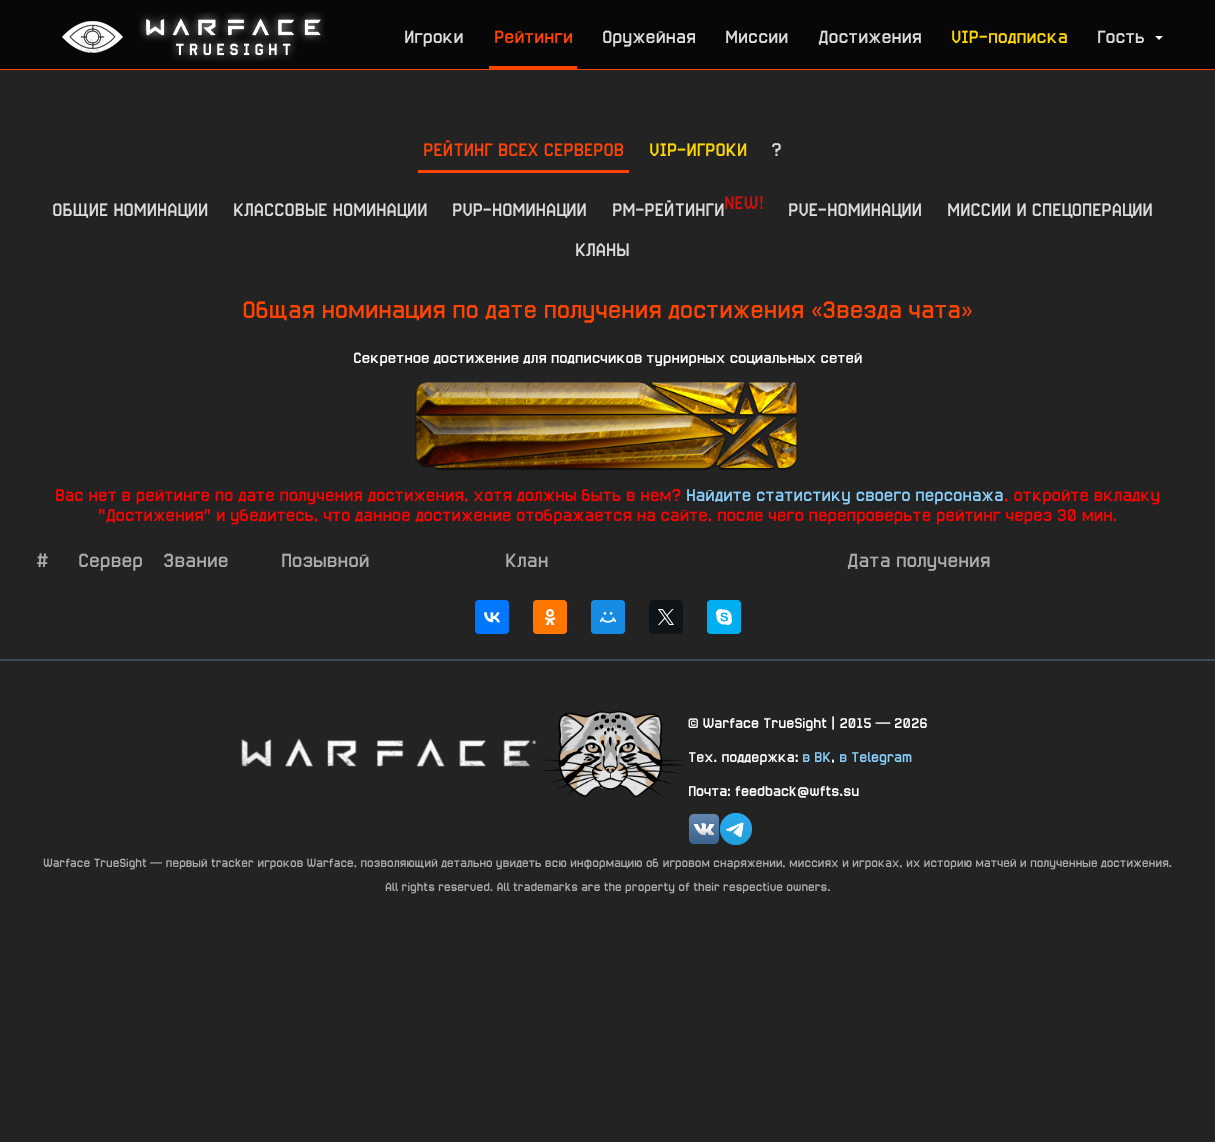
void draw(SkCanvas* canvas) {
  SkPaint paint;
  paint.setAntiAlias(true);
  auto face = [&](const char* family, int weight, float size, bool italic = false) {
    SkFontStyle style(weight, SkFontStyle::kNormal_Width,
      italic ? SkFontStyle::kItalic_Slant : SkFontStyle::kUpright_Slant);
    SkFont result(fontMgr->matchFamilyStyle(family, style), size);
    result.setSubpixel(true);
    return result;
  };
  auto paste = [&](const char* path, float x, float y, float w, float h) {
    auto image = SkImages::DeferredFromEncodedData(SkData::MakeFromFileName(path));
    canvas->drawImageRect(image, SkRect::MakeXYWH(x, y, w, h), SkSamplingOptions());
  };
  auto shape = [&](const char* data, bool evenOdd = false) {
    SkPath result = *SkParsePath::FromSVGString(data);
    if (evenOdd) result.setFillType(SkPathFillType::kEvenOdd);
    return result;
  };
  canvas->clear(0xff242323);
  paint.setColor(0xff070707);
  canvas->drawRect(SkRect::MakeXYWH(0, 0, 1215, 69), paint);
  paint.setColor(0xffff4400);
  canvas->drawRect(SkRect::MakeXYWH(0, 69, 1215, 1), paint);
  paste("img/1.png", 62, 12, 263, 50);
  canvas->drawRect(SkRect::MakeXYWH(489, 66, 88, 3), paint);
  paint.setColor(0xffffffff);
  canvas->drawPath(shape("M1155 36H1163L1159 40Z"), paint);
  paint.setColor(0xffff4400);
  canvas->drawRect(SkRect::MakeXYWH(418, 170, 211, 3), paint);
  paste("img/2.png", 415, 382, 383, 89);
  paint.setColor(0xff0077ff);
  canvas->drawRoundRect(SkRect::MakeXYWH(475, 600, 34, 34), 4, 4, paint);
  paste("img/3.png", 484, 612, 16, 11);
  paint.setColor(0xffff7700);
  canvas->drawRoundRect(SkRect::MakeXYWH(533, 600, 34, 34), 4, 4, paint);
  paste("img/4.png", 544, 609, 12, 16);
  paint.setColor(0xff168de2);
  canvas->drawRoundRect(SkRect::MakeXYWH(591, 600, 34, 34), 4, 4, paint);
  paste("img/5.png", 600, 612, 16, 11);
  paint.setColor(0xff0f1419);
  canvas->drawRoundRect(SkRect::MakeXYWH(649, 600, 34, 34), 4, 4, paint);
  paste("img/6.png", 658, 609, 16, 16);
  paint.setColor(0xff00aff0);
  canvas->drawRoundRect(SkRect::MakeXYWH(707, 600, 34, 34), 4, 4, paint);
  paste("img/7.png", 716, 609, 16, 16);
  paint.setColor(0xff404c57);
  canvas->drawRect(SkRect::MakeXYWH(0, 659, 1215, 2), paint);
  paste("img/8.png", 241, 738, 296, 29);
  paste("img/9.png", 542, 711, 143, 86);
  paste("img/10.png", 688, 813, 32, 31);
  paste("img/11.png", 720, 813, 32, 32);
  auto f0 = face("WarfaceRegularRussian", 400, 18);
  paint.setColor(0xffdbdcde);
  canvas->drawString("Игроки", 404, 43, f0, paint);
  paint.setColor(0xffff4400);
  canvas->drawString("Рейтинги", 494, 43, f0, paint);
  paint.setColor(0xffdbdcde);
  {
    const struct { const char* s; float x, y; } items[] = {
      {"Оружейная", 602, 43},
      {"Миссии", 725, 43},
      {"Достижения", 818, 43},
    };
    for (auto [s, x, y] : items) {
      canvas->drawString(s, x, y, f0, paint);
    }
  }
  paint.setColor(0xffffd700);
  canvas->drawString("VIP-подписка", 951, 43, f0, paint);
  paint.setColor(0xffdbdcde);
  canvas->drawString("Гость", 1097, 43, f0, paint);
  auto f1 = face("WarfaceRegularRussian", 400, 18.25f);
  paint.setColor(0xffff4400);
  canvas->drawString("РЕЙТИНГ ВСЕХ СЕРВЕРОВ", 423, 156, f1, paint);
  paint.setColor(0xffffd700);
  canvas->drawString("VIP-ИГРОКИ", 649, 156, f1, paint);
  paint.setColor(0xffdbdcde);
  {
    const struct { const char* s; float x, y; } items[] = {
      {"?", 771, 156},
      {"ОБЩИЕ НОМИНАЦИИ", 52, 216},
      {"КЛАССОВЫЕ НОМИНАЦИИ", 233, 216},
      {"PVP-НОМИНАЦИИ", 452, 216},
      {"РМ-РЕЙТИНГИ", 612, 216},
    };
    for (auto [s, x, y] : items) {
      canvas->drawString(s, x, y, f1, paint);
    }
  }
  paint.setColor(0xffd11010);
  canvas->drawString("NEW!", 724, 209, f1, paint);
  paint.setColor(0xffdbdcde);
  {
    const struct { const char* s; float x, y; } items[] = {
      {"PVE-НОМИНАЦИИ", 788, 216},
      {"МИССИИ И СПЕЦОПЕРАЦИИ", 947, 216},
      {"КЛАНЫ", 575, 256},
    };
    for (auto [s, x, y] : items) {
      canvas->drawString(s, x, y, f1, paint);
    }
  }
  auto f2 = face("WarfaceRegularRussian", 400, 24);
  paint.setColor(0xffff4400);
  canvas->drawString("Общая номинация по дате получения достижения", 242, 318, f2, paint);
  auto f3 = face("Oxygen", 400, 24);
  canvas->drawString("«", 811, 318, f3, paint);
  canvas->drawString("Звезда чата", 822, 318, f2, paint);
  canvas->drawString("»", 961, 318, f3, paint);
  auto f4 = face("WarfaceRegularRussian", 400, 15.1f);
  paint.setColor(0xffffffff);
  canvas->drawString("Секретное достижение для подписчиков турнирных социальных сетей", 353, 363, f4, paint);
  auto f5 = face("WarfaceRegularRussian", 400, 17);
  paint.setColor(0xffff0000);
  canvas->drawString("Вас нет в рейтинге по дате получения достижения, хотя должны быть в нем?", 55, 501, f5, paint);
  paint.setColor(0xff87cefa);
  canvas->drawString("Найдите статистику своего персонажа", 686, 501, f5, paint);
  paint.setColor(0xffff0000);
  canvas->drawString(", откройте вкладку", 1004, 501, f5, paint);
  canvas->drawString("\"Достижения\" и убедитесь, что данное достижение отображается на сайте, после чего перепроверьте рейтинг через 30 мин.", 98, 521, f5, paint);
  auto f6 = face("WarfaceRegularRussian", 400, 19.25f);
  paint.setColor(0xffababab);
  {
    const struct { const char* s; float x, y; } items[] = {
      {"#", 36, 567},
      {"Сервер", 78, 567},
      {"Звание", 163, 567},
      {"Позывной", 281, 567},
      {"Клан", 505, 567},
      {"Дата получения", 847, 567},
    };
    for (auto [s, x, y] : items) {
      canvas->drawString(s, x, y, f6, paint);
    }
  }
  auto f7 = face("WarfaceRegularRussian", 400, 14.4f);
  paint.setColor(0xffffffff);
  canvas->drawString("© Warface TrueSight | 2015 — 2026", 688, 728, f7, paint);
  canvas->drawString("Тех. поддержка:", 688, 762, f7, paint);
  paint.setColor(0xff87cefa);
  canvas->drawString("в ВК", 802, 762, f7, paint);
  paint.setColor(0xffffffff);
  canvas->drawString(",", 831, 762, f7, paint);
  paint.setColor(0xff87cefa);
  canvas->drawString("в Telegram", 839, 762, f7, paint);
  paint.setColor(0xffffffff);
  canvas->drawString("Почта: feedback@wfts.su", 688, 796, f7, paint);
  auto f8 = face("WarfaceRegularRussian", 400, 12);
  paint.setColor(0xffababab);
  canvas->drawString("Warface TrueSight — первый tracker игроков Warface, позволяющий детально увидеть всю информацию об игровом снаряжении, миссиях и игроках, их историю матчей и полученные достижения.", 43, 867, f8, paint);
  canvas->drawString("All rights reserved. All trademarks are the property of their respective owners.", 385, 891, f8, paint);
}
